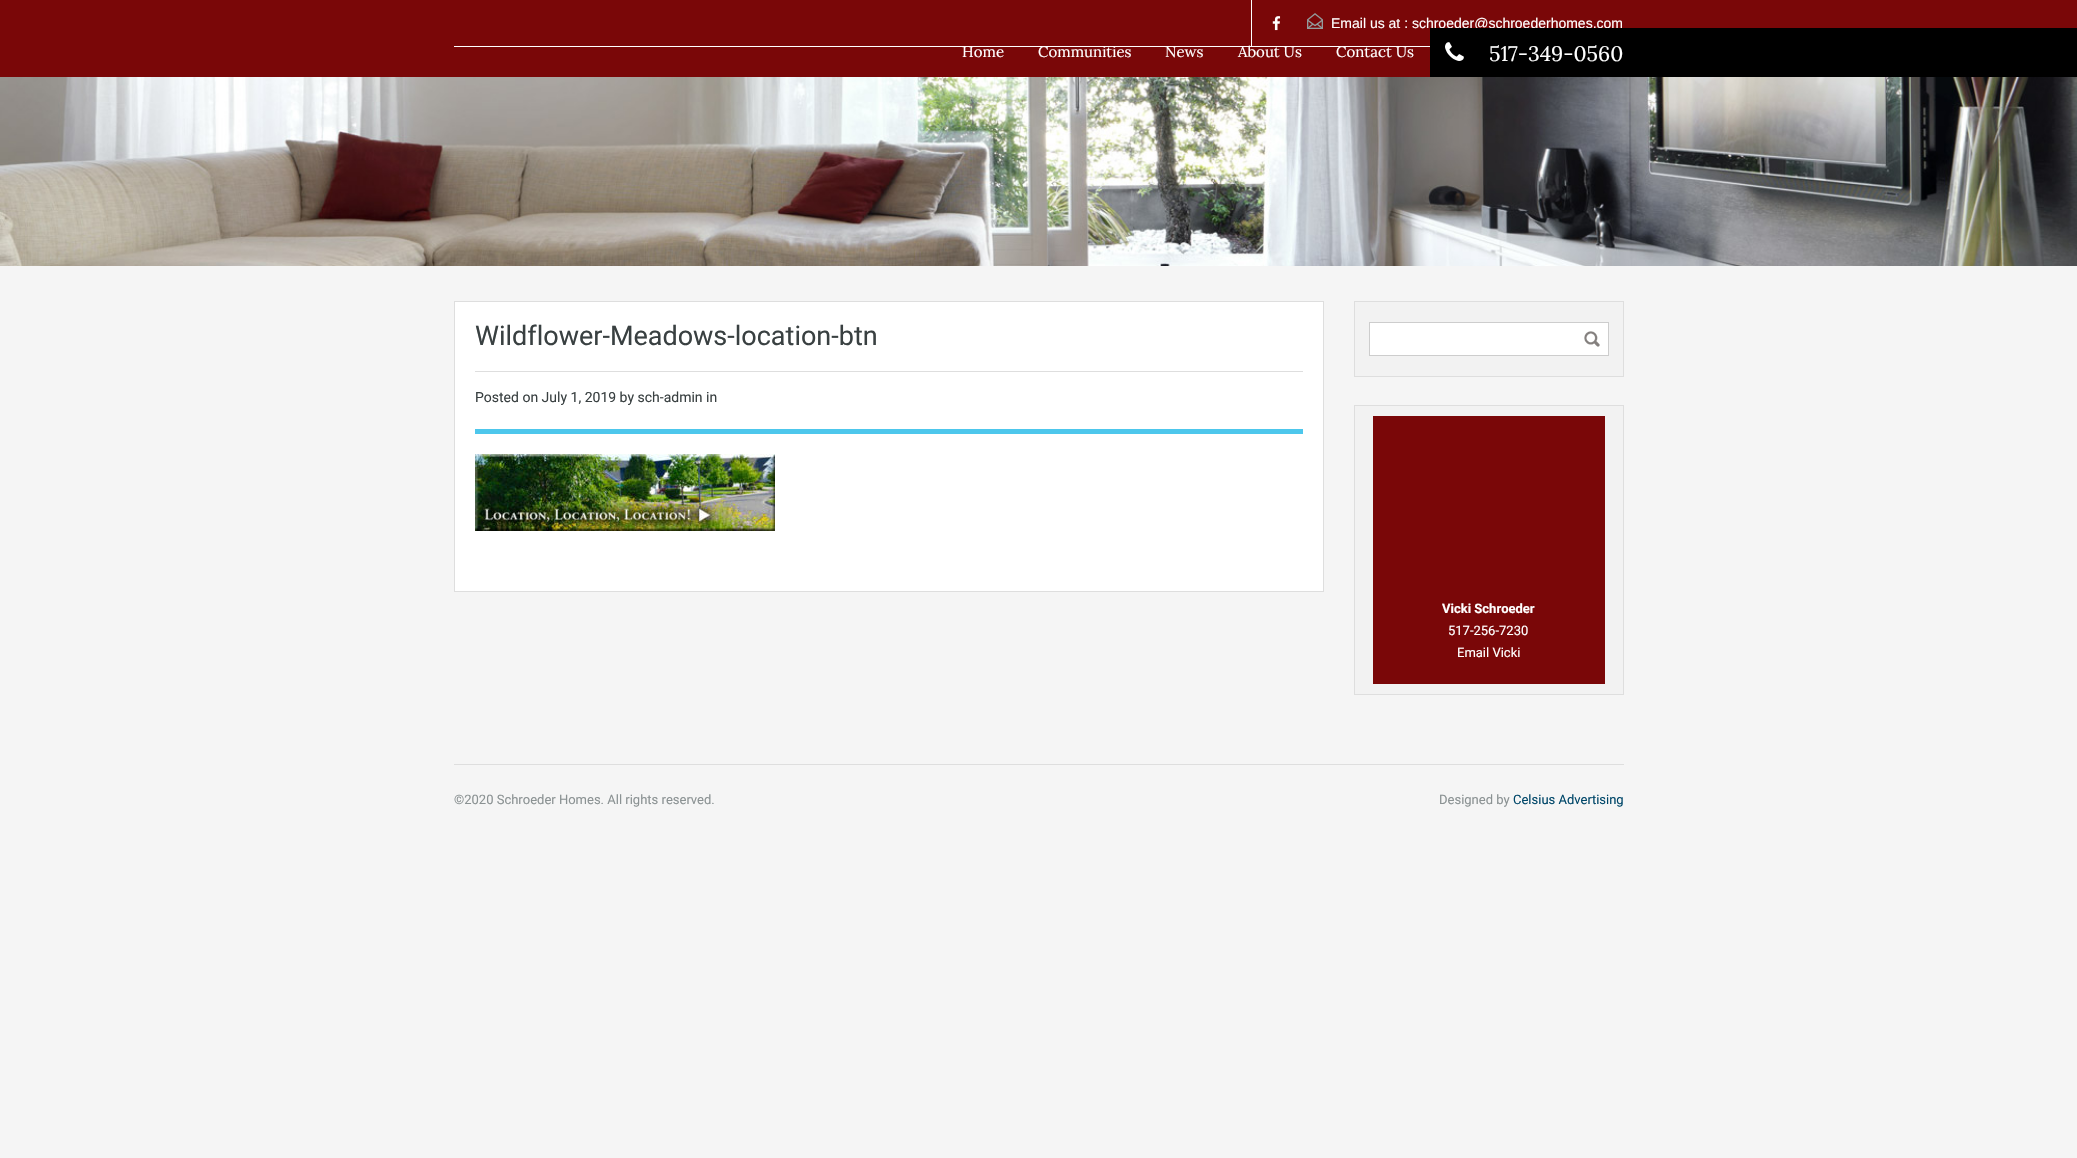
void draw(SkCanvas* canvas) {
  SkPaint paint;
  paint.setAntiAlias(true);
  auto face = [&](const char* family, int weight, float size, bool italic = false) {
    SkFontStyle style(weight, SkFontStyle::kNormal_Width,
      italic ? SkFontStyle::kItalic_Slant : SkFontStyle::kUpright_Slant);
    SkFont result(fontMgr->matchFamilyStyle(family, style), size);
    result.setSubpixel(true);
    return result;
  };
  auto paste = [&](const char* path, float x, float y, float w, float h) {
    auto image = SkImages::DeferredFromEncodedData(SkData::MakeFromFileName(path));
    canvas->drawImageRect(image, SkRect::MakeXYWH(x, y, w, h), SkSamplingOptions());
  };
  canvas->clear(0xfff5f5f5);
  {
    const struct { float x, y, w, h; SkColor color; } items[] = {
      {0, 0, 2077, 77, 0xff7a0708},
      {454, 46, 976, 1, 0xffffffff},
      {1251, 0, 1, 46, 0xffffffff},
    };
    for (auto [x, y, w, h, color] : items) {
      paint.setColor(color);
      canvas->drawRect(SkRect::MakeXYWH(x, y, w, h), paint);
    }
  }
  paste("img/1.png", 1272, 16, 9, 15);
  paste("img/2.png", 1307, 13, 16, 16);
  paste("img/4.png", 0, 77, 2077, 189);
  {
    const struct { float x, y, w, h; SkColor color; } items[] = {
      {1323, 301, 1, 291, 0xffdedede},
      {454, 301, 1, 291, 0xffdedede},
      {455, 302, 868, 289, 0xffffffff},
      {455, 301, 868, 1, 0xffdedede},
      {455, 591, 868, 1, 0xffdedede},
      {475, 371, 828, 1, 0xffdedede},
      {475, 429, 828, 5, 0xff4dc7ec},
    };
    for (auto [x, y, w, h, color] : items) {
      paint.setColor(color);
      canvas->drawRect(SkRect::MakeXYWH(x, y, w, h), paint);
    }
  }
  paste("img/5.png", 475, 454, 300, 77);
  paint.setColor(0xfff2f2f2);
  canvas->drawRect(SkRect::MakeXYWH(1354.5f, 301.5f, 269, 75), paint);
  paint.setStroke(true);
  paint.setStrokeWidth(1);
  paint.setColor(0xffdedede);
  canvas->drawRect(SkRect::MakeXYWH(1354.5f, 301.5f, 269, 75), paint);
  paint.setStroke(false);
  paint.setColor(0xffffffff);
  canvas->drawRect(SkRect::MakeXYWH(1369.5f, 322.5f, 239, 33), paint);
  paint.setStroke(true);
  paint.setColor(0xffcdcdcd);
  canvas->drawRect(SkRect::MakeXYWH(1369.5f, 322.5f, 239, 33), paint);
  paste("img/6.png", 1584, 331, 16, 16);
  paint.setStroke(false);
  paint.setColor(0xfff2f2f2);
  canvas->drawRect(SkRect::MakeXYWH(1354.5f, 405.5f, 269, 289), paint);
  paint.setStroke(true);
  paint.setColor(0xffdedede);
  canvas->drawRect(SkRect::MakeXYWH(1354.5f, 405.5f, 269, 289), paint);
  paint.setStroke(false);
  paint.setColor(0xff7a0708);
  canvas->drawRect(SkRect::MakeXYWH(1373, 416, 232, 268), paint);
  paint.setColor(0xffdedede);
  canvas->drawRect(SkRect::MakeXYWH(454, 764, 1170, 1), paint);
  auto f0 = face("Liberation Sans", 400, 14);
  paint.setColor(0xffffffff);
  canvas->drawString("Email us at : schroeder@schroederhomes.com", 1331, 28, f0, paint);
  auto f1 = face("Lora", 400, 15);
  {
    const struct { const char* s; float x, y; } items[] = {
      {"Home", 962, 57},
      {"Communities", 1038, 57},
      {"News", 1165, 57},
      {"About Us", 1238, 57},
      {"Contact Us", 1336, 57},
    };
    for (auto [s, x, y] : items) {
      canvas->drawString(s, x, y, f1, paint);
    }
  }
  paint.setColor(0xff000000);
  canvas->drawRect(SkRect::MakeXYWH(1430, 28, 647, 49), paint);
  paste("img/3.png", 1445, 42, 19, 19);
  auto f2 = face("Lora", 400, 21);
  paint.setColor(0xffffffff);
  canvas->drawString("517-349-0560", 1489, 61, f2, paint);
  auto f3 = face("Roboto", 400, 27);
  paint.setColor(0xff394041);
  canvas->drawString("Wildflower-Meadows-location-btn", 475, 345, f3, paint);
  auto f4 = face("Roboto", 400, 14);
  canvas->drawString("Posted on July 1, 2019 by sch-admin in", 475, 402, f4, paint);
  auto f5 = face("Roboto", 700, 13);
  paint.setColor(0xffffffff);
  canvas->drawString("Vicki Schroeder", 1442, 613, f5, paint);
  auto f6 = face("Roboto", 400, 13);
  canvas->drawString("517-256-7230", 1448, 635, f6, paint);
  canvas->drawString("Email Vicki", 1457, 657, f6, paint);
  paint.setColor(0xff8b9293);
  canvas->drawString("©2020 Schroeder Homes. All rights reserved.", 454, 804, f6, paint);
  canvas->drawString("Designed by", 1439, 804, f6, paint);
  paint.setColor(0xff004769);
  canvas->drawString("Celsius Advertising", 1513, 804, f6, paint);
}
